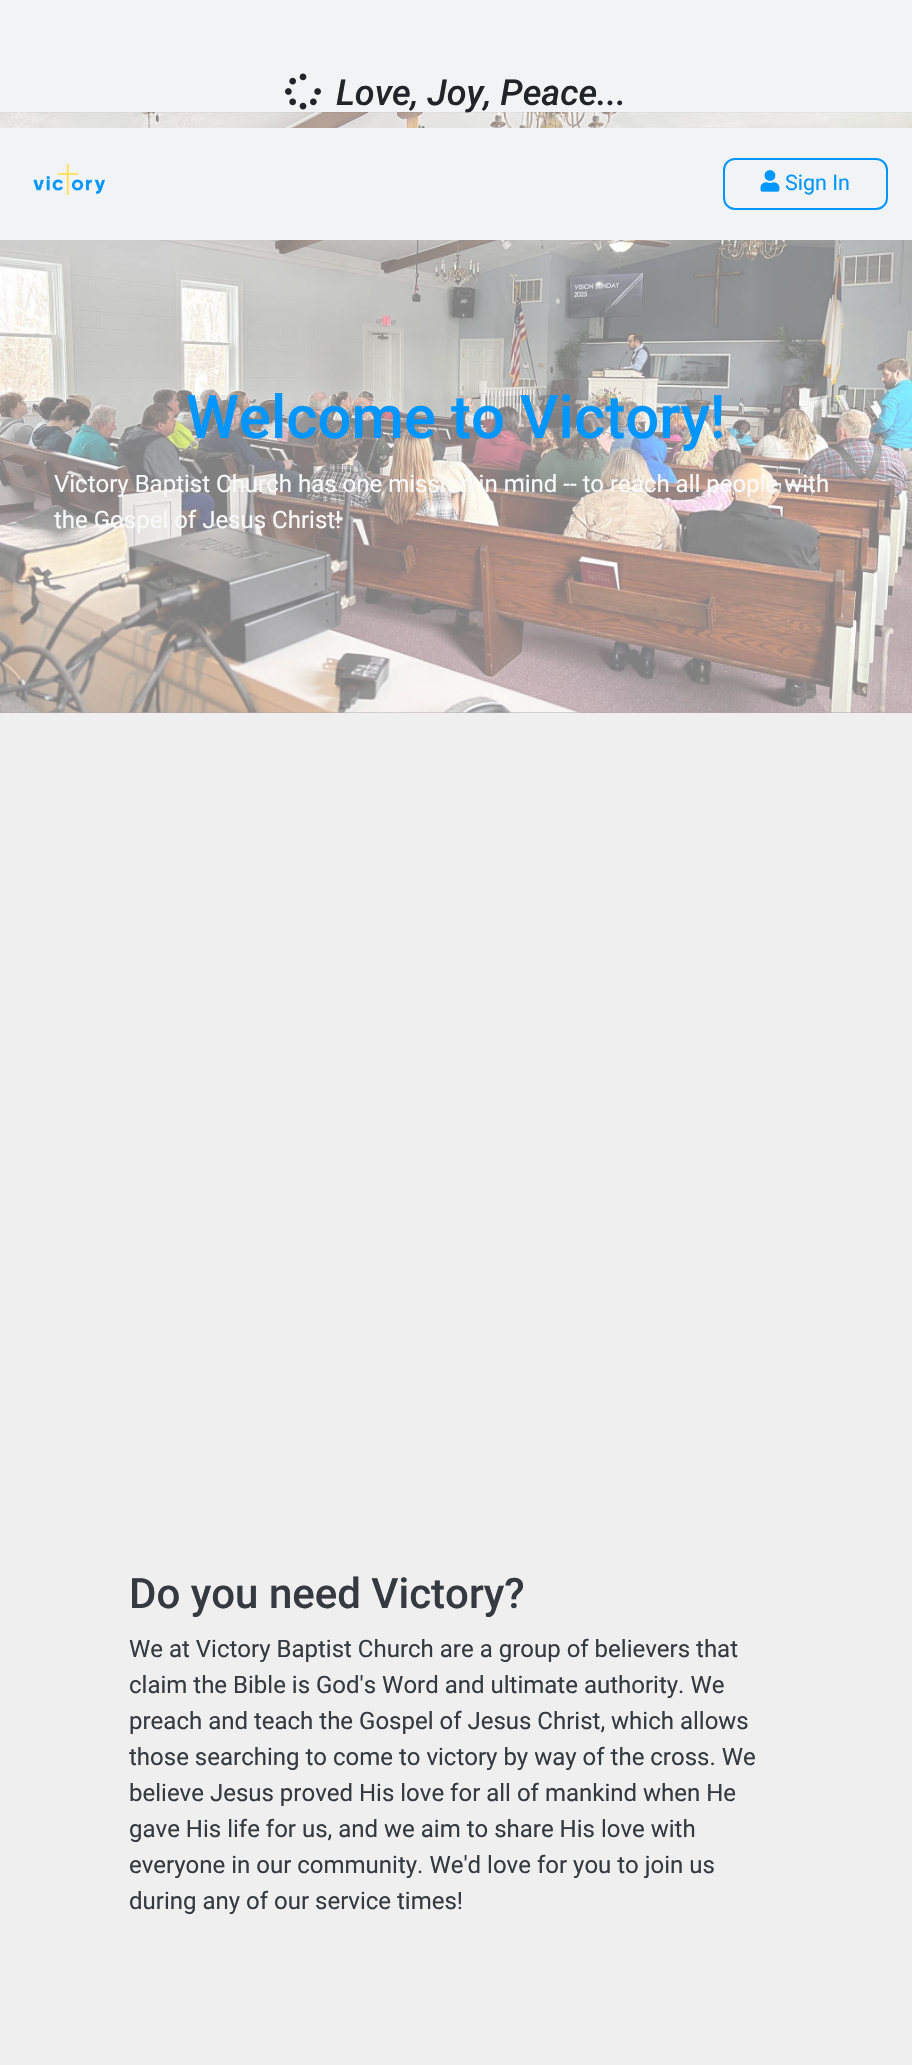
void draw(SkCanvas* canvas) {
  SkPaint paint;
  paint.setAntiAlias(true);
  auto face = [&](const char* family, int weight, float size, bool italic = false) {
    SkFontStyle style(weight, SkFontStyle::kNormal_Width,
      italic ? SkFontStyle::kItalic_Slant : SkFontStyle::kUpright_Slant);
    SkFont result(fontMgr->matchFamilyStyle(family, style), size);
    result.setSubpixel(true);
    return result;
  };
  auto paste = [&](const char* path, float x, float y, float w, float h) {
    auto image = SkImages::DeferredFromEncodedData(SkData::MakeFromFileName(path));
    canvas->drawImageRect(image, SkRect::MakeXYWH(x, y, w, h), SkSamplingOptions());
  };
  canvas->clear(0xfff2f3f4);
  paste("img/1.png", 285, 73, 36, 37);
  paint.setColor(0xffefefef);
  canvas->drawRect(SkRect::MakeXYWH(0, 713, 912, 1352), paint);
  paint.setColor(0xffafabad);
  canvas->drawRect(SkRect::MakeXYWH(0, 712, 912, 1), paint);
  auto f0 = face("Roboto", 500, 36, true);
  paint.setColor(0xff212529);
  canvas->drawString("Love, Joy, Peace...", 336, 105, f0, paint);
  paste("img/4.png", 0, 112, 912, 601);
  paint.setColor(0xfff2f3f4);
  canvas->drawRect(SkRect::MakeXYWH(0, 128, 912, 112), paint);
  paint.setStroke(true);
  paint.setStrokeWidth(2);
  paint.setColor(0xff0096ff);
  canvas->drawRoundRect(SkRect::MakeXYWH(724, 159, 163, 50), 11, 11, paint);
  auto f1 = face("Roboto", 400, 21.5f);
  paint.setStroke(false);
  canvas->drawString("Sign In", 785, 190, f1, paint);
  paste("img/3.png", 760, 170, 20, 22);
  paste("img/2.png", 33, 163, 72, 33);
  auto f2 = face("Roboto", 500, 60);
  canvas->drawString("Welcome to Victory!", 186, 438, f2, paint);
  auto f3 = face("Roboto", 400, 24);
  paint.setColor(0xfff8f9fa);
  canvas->drawString("Victory Baptist Church has one mission in mind -- to reach all people with", 54, 492, f3, paint);
  canvas->drawString("the Gospel of Jesus Christ!", 54, 528, f3, paint);
  auto f4 = face("Roboto", 500, 42);
  paint.setColor(0xff343a40);
  canvas->drawString("Do you need Victory?", 129, 1608, f4, paint);
  {
    const struct { const char* s; float x, y; } items[] = {
      {"We at Victory Baptist Church are a group of believers that", 129, 1657},
      {"claim the Bible is God's Word and ultimate authority. We", 129, 1693},
      {"preach and teach the Gospel of Jesus Christ, which allows", 129, 1729},
      {"those searching to come to victory by way of the cross. We", 129, 1765},
      {"believe Jesus proved His love for all of mankind when He", 129, 1801},
      {"gave His life for us, and we aim to share His love with", 129, 1837},
      {"everyone in our community. We'd love for you to join us", 129, 1873},
      {"during any of our service times!", 129, 1909},
    };
    for (auto [s, x, y] : items) {
      canvas->drawString(s, x, y, f3, paint);
    }
  }
}
